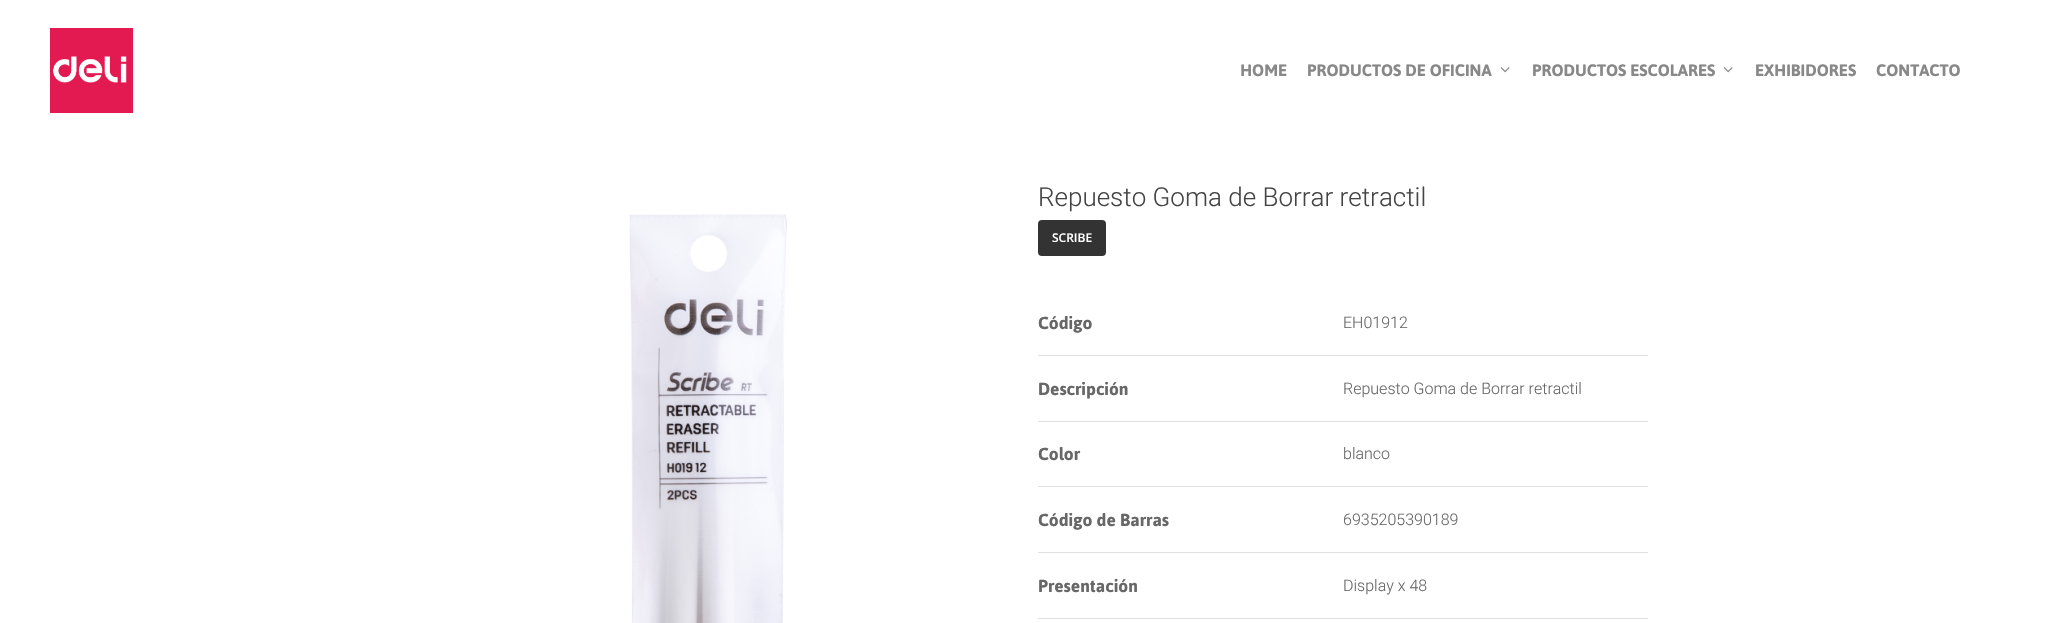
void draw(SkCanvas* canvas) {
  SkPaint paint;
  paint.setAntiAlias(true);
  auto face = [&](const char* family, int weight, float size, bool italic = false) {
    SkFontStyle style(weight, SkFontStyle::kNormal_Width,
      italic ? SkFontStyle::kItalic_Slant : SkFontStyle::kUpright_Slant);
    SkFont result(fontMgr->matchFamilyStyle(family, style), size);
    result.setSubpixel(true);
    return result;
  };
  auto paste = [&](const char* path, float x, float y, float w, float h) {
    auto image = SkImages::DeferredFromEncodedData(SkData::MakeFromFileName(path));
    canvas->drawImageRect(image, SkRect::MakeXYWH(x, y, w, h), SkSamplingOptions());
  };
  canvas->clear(0xffffffff);
  paste("img/1.png", 50, 28, 84, 85);
  paste("img/2.png", 1500, 67, 10, 6);
  paste("img/2.png", 1723, 67, 10, 6);
  paste("img/3.png", 629, 214, 158, 409);
  paint.setColor(0xff333333);
  canvas->drawRoundRect(SkRect::MakeXYWH(1038, 220, 68, 36), 4, 4, paint);
  {
    const struct { float x, y, w, h; SkColor color; } items[] = {
      {1038, 355, 610, 1, 0xffe0e0e0},
      {1038, 421, 610, 1, 0xffe0e0e0},
      {1038, 486, 610, 1, 0xffe0e0e0},
      {1038, 552, 610, 1, 0xffe0e0e0},
      {1038, 618, 610, 1, 0xffe0e0e0},
    };
    for (auto [x, y, w, h, color] : items) {
      paint.setColor(color);
      canvas->drawRect(SkRect::MakeXYWH(x, y, w, h), paint);
    }
  }
  auto f0 = face("Jaldi", 700, 19);
  paint.setColor(0xff888888);
  {
    const struct { const char* s; float x, y; } items[] = {
      {"HOME", 1240, 76},
      {"PRODUCTOS DE OFICINA", 1307, 76},
      {"PRODUCTOS ESCOLARES", 1532, 76},
      {"EXHIBIDORES", 1755, 76},
      {"CONTACTO", 1876, 76},
    };
    for (auto [s, x, y] : items) {
      canvas->drawString(s, x, y, f0, paint);
    }
  }
  auto f1 = face("Roboto", 300, 26);
  paint.setColor(0xff444444);
  canvas->drawString("Repuesto Goma de Borrar retractil", 1038, 206, f1, paint);
  auto f2 = face("Open Sans", 600, 12);
  paint.setColor(0xffffffff);
  canvas->drawString("SCRIBE", 1052, 242, f2, paint);
  auto f3 = face("Jaldi", 700, 20);
  paint.setColor(0xff676767);
  canvas->drawString("Código", 1038, 329, f3, paint);
  auto f4 = face("Roboto", 300, 16);
  canvas->drawString("EH01912", 1343, 328, f4, paint);
  canvas->drawString("Descripción", 1038, 395, f3, paint);
  canvas->drawString("Repuesto Goma de Borrar retractil", 1343, 394, f4, paint);
  canvas->drawString("Color", 1038, 460, f3, paint);
  canvas->drawString("blanco", 1343, 459, f4, paint);
  canvas->drawString("Código de Barras", 1038, 526, f3, paint);
  canvas->drawString("6935205390189", 1343, 525, f4, paint);
  canvas->drawString("Presentación", 1038, 592, f3, paint);
  canvas->drawString("Display x 48", 1343, 591, f4, paint);
}
